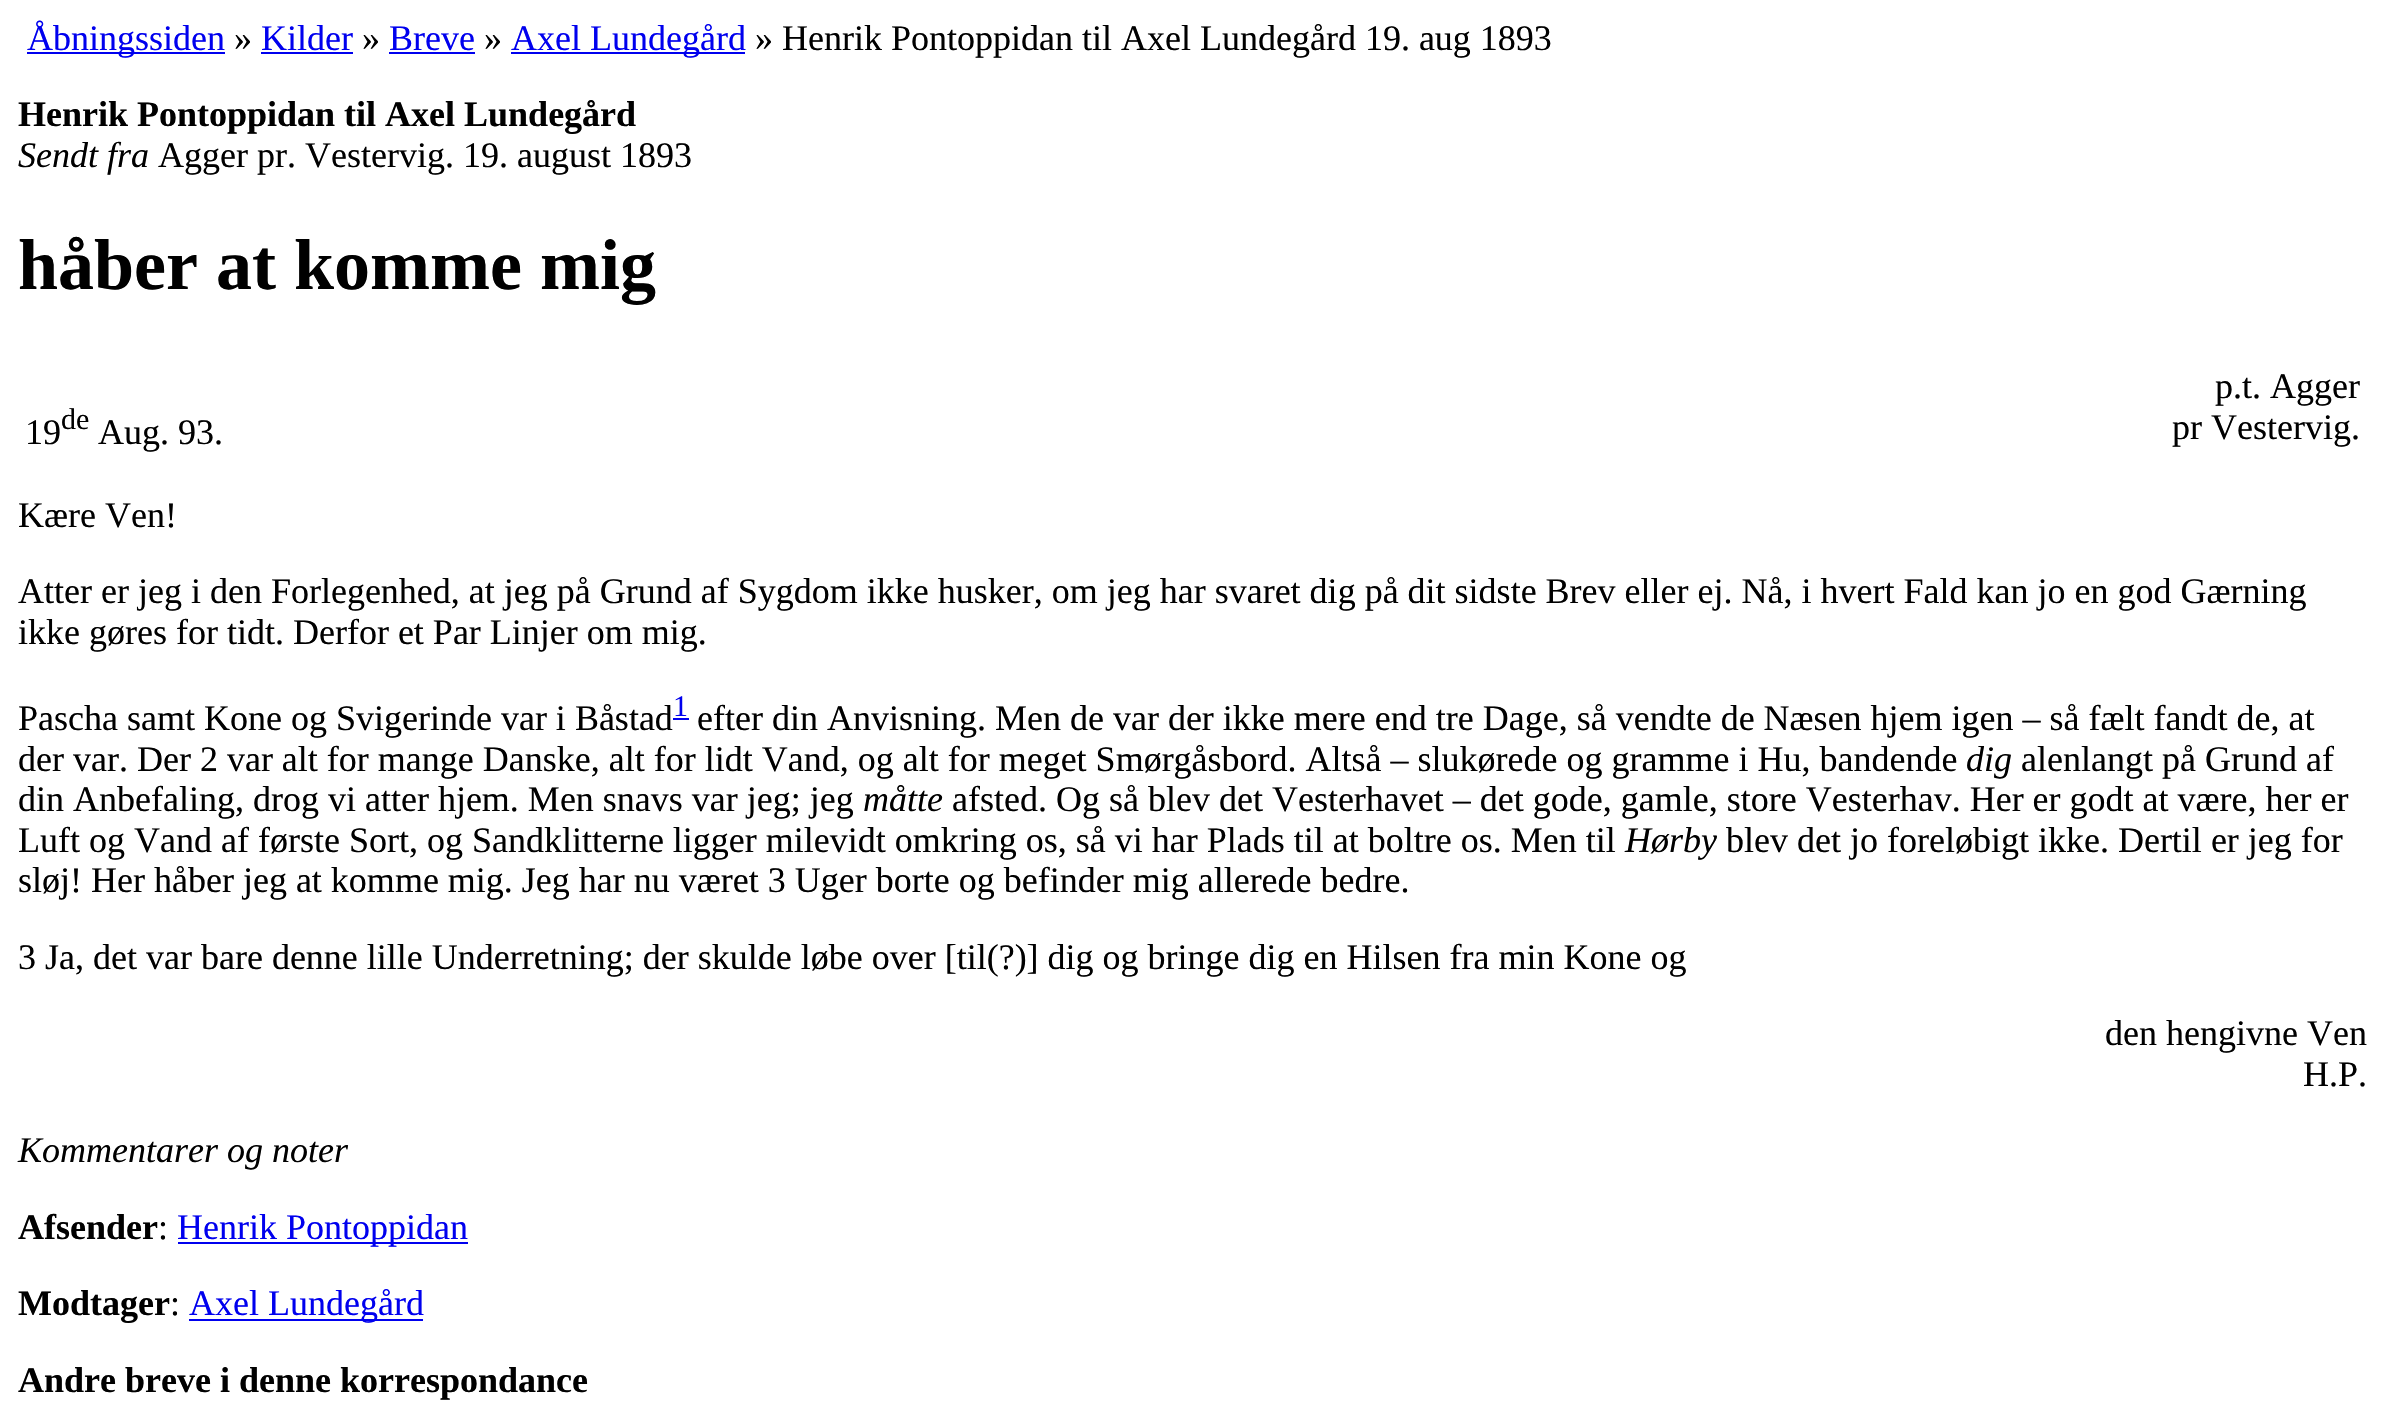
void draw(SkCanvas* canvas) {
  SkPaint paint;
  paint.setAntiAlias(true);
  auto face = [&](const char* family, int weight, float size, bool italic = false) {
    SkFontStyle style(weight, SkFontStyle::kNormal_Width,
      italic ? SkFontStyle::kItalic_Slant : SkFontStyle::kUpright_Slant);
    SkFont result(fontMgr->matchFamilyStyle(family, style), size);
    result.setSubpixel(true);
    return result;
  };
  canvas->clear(0xffffffff);
  {
    const struct { float x, y, w, h; SkColor color; } items[] = {
      {27, 52, 198, 2, 0xff0000ee},
      {261, 52, 92, 2, 0xff0000ee},
      {389, 52, 86, 2, 0xff0000ee},
      {511, 52, 234, 2, 0xff0000ee},
      {673, 718, 16, 2, 0xff0000ee},
      {178, 1242, 290, 2, 0xff0000ee},
      {189, 1319, 234, 2, 0xff0000ee},
    };
    for (auto [x, y, w, h, color] : items) {
      paint.setColor(color);
      canvas->drawRect(SkRect::MakeXYWH(x, y, w, h), paint);
    }
  }
  auto f0 = face("Liberation Serif", 400, 36);
  canvas->drawString("Åbningssiden", 27, 50, f0, paint);
  paint.setColor(0xff000000);
  canvas->drawString("»", 234, 50, f0, paint);
  paint.setColor(0xff0000ee);
  canvas->drawString("Kilder", 261, 50, f0, paint);
  paint.setColor(0xff000000);
  canvas->drawString("»", 362, 50, f0, paint);
  paint.setColor(0xff0000ee);
  canvas->drawString("Breve", 389, 50, f0, paint);
  paint.setColor(0xff000000);
  canvas->drawString("»", 484, 50, f0, paint);
  paint.setColor(0xff0000ee);
  canvas->drawString("Axel Lundegård", 511, 50, f0, paint);
  paint.setColor(0xff000000);
  canvas->drawString("» Henrik Pontoppidan til Axel Lundegård 19. aug 1893", 755, 50, f0, paint);
  auto f1 = face("Liberation Serif", 700, 36);
  canvas->drawString("Henrik Pontoppidan til Axel Lundegård", 18, 126, f1, paint);
  auto f2 = face("Liberation Serif", 400, 36, true);
  canvas->drawString("Sendt fra", 18, 167, f2, paint);
  canvas->drawString("Agger pr. Vestervig. 19. august 1893", 158, 167, f0, paint);
  auto f3 = face("Liberation Serif", 700, 72);
  canvas->drawString("håber at komme mig", 18, 289, f3, paint);
  canvas->drawString("19", 25, 444, f0, paint);
  auto f4 = face("Liberation Serif", 400, 30);
  canvas->drawString("de", 61, 429, f4, paint);
  {
    const struct { const char* s; float x, y; } items[] = {
      {"Aug. 93.", 98, 444},
      {"p.t. Agger", 2215, 398},
      {"pr Vestervig.", 2172, 439},
      {"Kære Ven!", 18, 527},
      {"Atter er jeg i den Forlegenhed, at jeg på Grund af Sygdom ikke husker, om jeg har svaret dig på dit sidste Brev eller ej. Nå, i hvert Fald kan jo en god Gærning", 18, 603},
      {"ikke gøres for tidt. Derfor et Par Linjer om mig.", 18, 644},
      {"Pascha samt Kone og Svigerinde var i Båstad", 18, 730},
    };
    for (auto [s, x, y] : items) {
      canvas->drawString(s, x, y, f0, paint);
    }
  }
  paint.setColor(0xff0000ee);
  canvas->drawString("1", 673, 716, f4, paint);
  paint.setColor(0xff000000);
  canvas->drawString("efter din Anvisning. Men de var der ikke mere end tre Dage, så vendte de Næsen hjem igen – så fælt fandt de, at", 697, 730, f0, paint);
  canvas->drawString("der var. Der 2 var alt for mange Danske, alt for lidt Vand, og alt for meget Smørgåsbord. Altså – slukørede og gramme i Hu, bandende", 18, 771, f0, paint);
  canvas->drawString("dig", 1966, 771, f2, paint);
  canvas->drawString("alenlangt på Grund af", 2021, 771, f0, paint);
  canvas->drawString("din Anbefaling, drog vi atter hjem. Men snavs var jeg; jeg", 18, 811, f0, paint);
  canvas->drawString("måtte", 863, 811, f2, paint);
  canvas->drawString("afsted. Og så blev det Vesterhavet – det gode, gamle, store Vesterhav. Her er godt at være, her er", 952, 811, f0, paint);
  canvas->drawString("Luft og Vand af første Sort, og Sandklitterne ligger milevidt omkring os, så vi har Plads til at boltre os. Men til", 18, 852, f0, paint);
  canvas->drawString("Hørby", 1625, 852, f2, paint);
  {
    const struct { const char* s; float x, y; } items[] = {
      {"blev det jo foreløbigt ikke. Dertil er jeg for", 1726, 852},
      {"sløj! Her håber jeg at komme mig. Jeg har nu været 3 Uger borte og befinder mig allerede bedre.", 18, 892},
      {"3 Ja, det var bare denne lille Underretning; der skulde løbe over [til(?)] dig og bringe dig en Hilsen fra min Kone og", 18, 969},
      {"den hengivne Ven", 2105, 1045},
      {"H.P.", 2303, 1086},
    };
    for (auto [s, x, y] : items) {
      canvas->drawString(s, x, y, f0, paint);
    }
  }
  canvas->drawString("Kommentarer og noter", 18, 1162, f2, paint);
  canvas->drawString("Afsender", 18, 1239, f1, paint);
  canvas->drawString(":", 158, 1239, f0, paint);
  paint.setColor(0xff0000ee);
  canvas->drawString("Henrik Pontoppidan", 177, 1239, f0, paint);
  paint.setColor(0xff000000);
  canvas->drawString("Modtager", 18, 1315, f1, paint);
  canvas->drawString(":", 170, 1315, f0, paint);
  paint.setColor(0xff0000ee);
  canvas->drawString("Axel Lundegård", 189, 1315, f0, paint);
  paint.setColor(0xff000000);
  canvas->drawString("Andre breve i denne korrespondance", 18, 1392, f1, paint);
}
